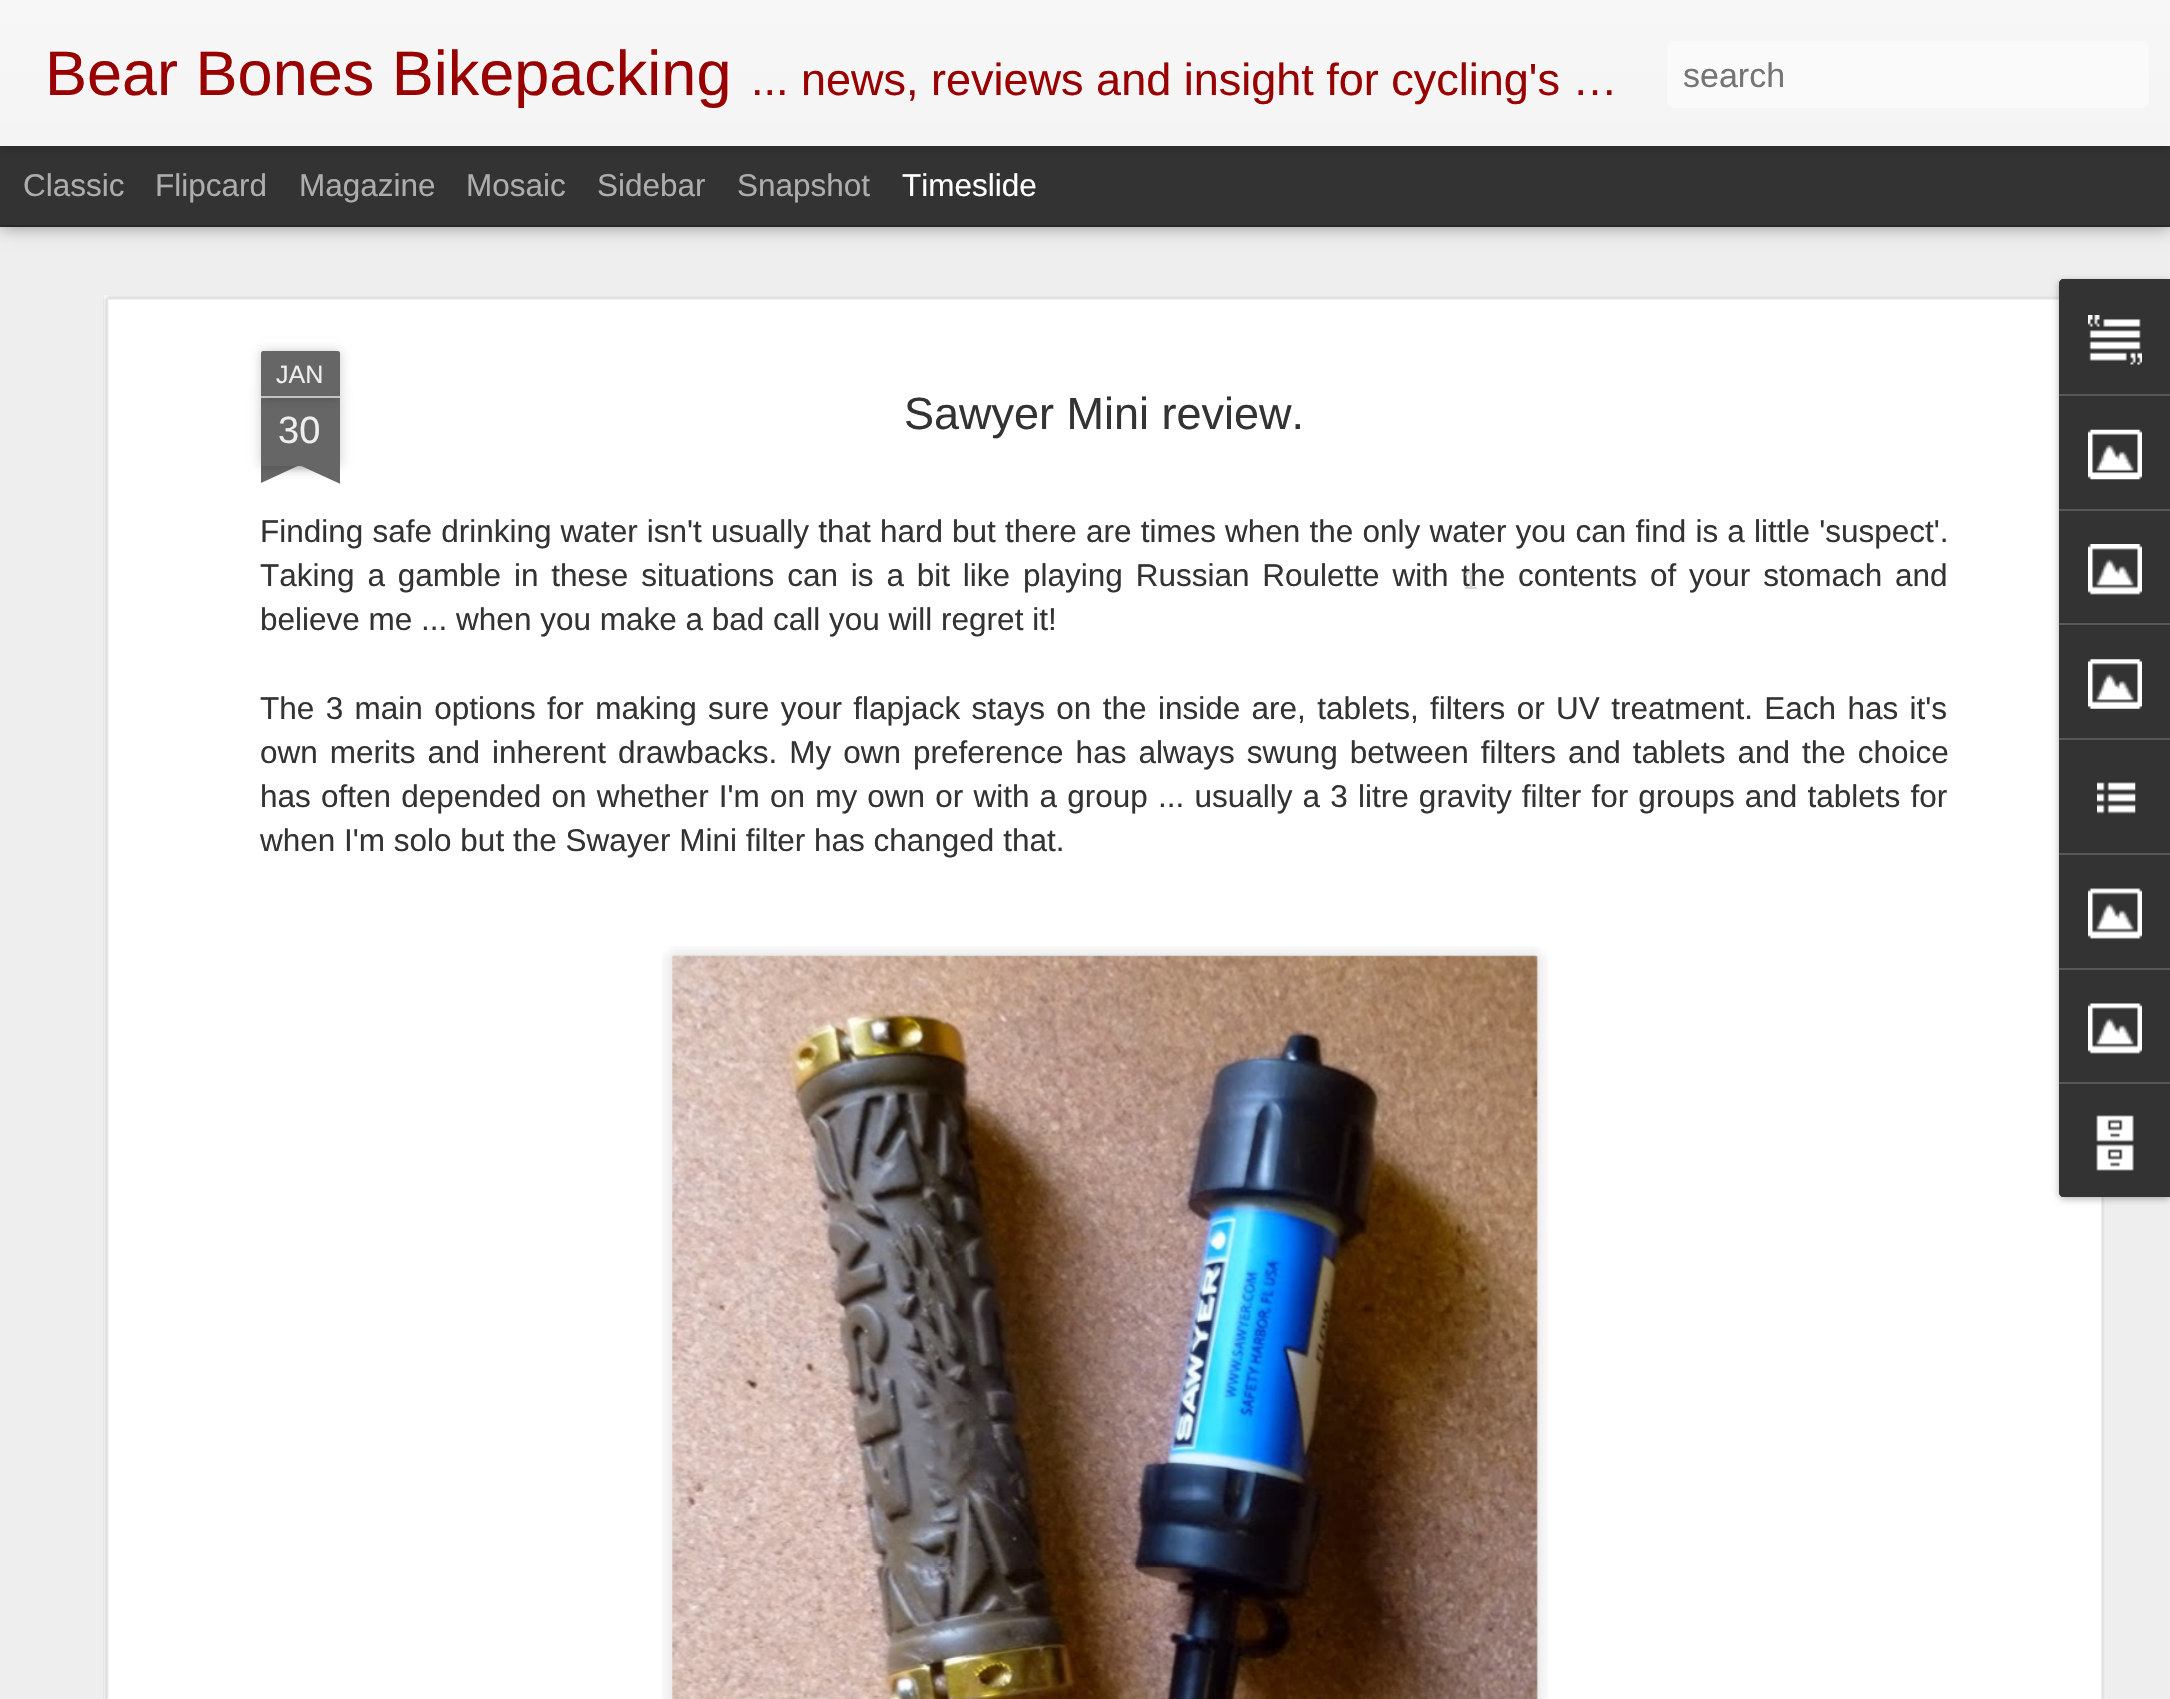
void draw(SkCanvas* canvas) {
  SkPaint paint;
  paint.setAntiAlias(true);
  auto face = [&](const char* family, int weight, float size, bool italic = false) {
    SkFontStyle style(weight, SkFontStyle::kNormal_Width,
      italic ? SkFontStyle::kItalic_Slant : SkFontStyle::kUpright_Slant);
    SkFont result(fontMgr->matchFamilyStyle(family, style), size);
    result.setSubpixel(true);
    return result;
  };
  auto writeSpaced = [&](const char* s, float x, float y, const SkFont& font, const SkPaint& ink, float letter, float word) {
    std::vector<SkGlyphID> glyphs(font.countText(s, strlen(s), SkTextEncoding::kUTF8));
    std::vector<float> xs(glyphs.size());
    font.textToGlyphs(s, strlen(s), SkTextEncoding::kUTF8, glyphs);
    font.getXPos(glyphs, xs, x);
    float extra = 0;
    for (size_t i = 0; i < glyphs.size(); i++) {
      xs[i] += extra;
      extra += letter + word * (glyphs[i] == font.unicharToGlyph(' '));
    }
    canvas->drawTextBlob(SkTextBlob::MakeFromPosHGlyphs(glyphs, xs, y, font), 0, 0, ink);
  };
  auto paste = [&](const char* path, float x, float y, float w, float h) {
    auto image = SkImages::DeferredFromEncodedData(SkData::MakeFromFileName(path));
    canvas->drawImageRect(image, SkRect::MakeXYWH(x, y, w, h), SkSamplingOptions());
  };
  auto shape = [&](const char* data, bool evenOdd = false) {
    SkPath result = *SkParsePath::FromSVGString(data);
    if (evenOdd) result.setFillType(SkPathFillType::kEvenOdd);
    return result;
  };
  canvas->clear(0xff333333);
  paint.setColor(0xffeeeeee);
  canvas->drawRect(SkRect::MakeXYWH(0, 227, 2170, 1472), paint);
  paint.setColor(0x80000000);
  paint.setMaskFilter(SkMaskFilter::MakeBlur(kNormal_SkBlurStyle, 9));
  canvas->drawRect(SkRect::MakeXYWH(0, 146, 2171, 79), paint);
  paint.setMaskFilter(nullptr);
  paint.setColor(0xff333333);
  canvas->drawRect(SkRect::MakeXYWH(0, 146, 2170, 79), paint);
  paint.setColor(0x4d000000);
  paint.setMaskFilter(SkMaskFilter::MakeBlur(kNormal_SkBlurStyle, 5.5f));
  canvas->drawRect(SkRect::MakeXYWH(0, 0, 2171, 146), paint);
  paint.setMaskFilter(nullptr);
  {
    const SkColor colors[] = {0xfff7f7f7, 0xfff4f4f4};
    const float stops[] = {0, 1};
    const SkPoint ends[] = {{0, 0}, {0, 146}};
    paint.setShader(SkGradientShader::MakeLinear(ends, colors, stops, 2, SkTileMode::kClamp));
    paint.setAlpha(255);
  }
  canvas->drawRect(SkRect::MakeXYWH(0, 0, 2170, 146), paint);
  paint.setShader(nullptr);
  paint.setColor(0xfffafafa);
  canvas->drawRoundRect(SkRect::MakeXYWH(1667, 41, 482, 67), 7, 7, paint);
  paint.setColor(0xffffffff);
  canvas->drawRect(SkRect::MakeXYWH(104, 295, 2002, 1404), paint);
  paste("img/1.png", 103, 295, 2003, 1404);
  paint.setColor(0x33000000);
  paint.setMaskFilter(SkMaskFilter::MakeBlur(kNormal_SkBlurStyle, 5.5f));
  canvas->drawRect(SkRect::MakeXYWH(261, 398, 79, 68), paint);
  paint.setMaskFilter(nullptr);
  paint.setColor(0xff666666);
  canvas->drawRect(SkRect::MakeXYWH(261, 398, 79, 68), paint);
  paint.setColor(0x33000000);
  paint.setMaskFilter(SkMaskFilter::MakeBlur(kNormal_SkBlurStyle, 5.5f));
  canvas->drawRoundRect(SkRect::MakeXYWH(261, 351, 79, 47), 2, 2, paint);
  paint.setMaskFilter(nullptr);
  paint.setColor(0xff666666);
  canvas->drawPath(shape("M263 351H338C339 351 340 352 340 353V398H261V353C261 352 262 351 263 351Z"), paint);
  paint.setColor(0xffc2c2c2);
  canvas->drawRect(SkRect::MakeXYWH(261, 396, 79, 2), paint);
  canvas->save();
  canvas->clipRect(SkRect::MakeXYWH(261, 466, 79, 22));
  paint.setColor(0x33000000);
  paint.setMaskFilter(SkMaskFilter::MakeBlur(kNormal_SkBlurStyle, 5.5f));
  canvas->drawRect(SkRect::MakeXYWH(241, 443, 112, 23), paint);
  paint.setMaskFilter(nullptr);
  canvas->restore();
  canvas->save();
  canvas->clipRect(SkRect::MakeXYWH(261, 466, 79, 22));
  paint.setColor(0xff666666);
  canvas->drawPath(shape("M240 468L342 421L352 441L250 488Z"), paint);
  canvas->restore();
  canvas->save();
  canvas->clipRect(SkRect::MakeXYWH(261, 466, 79, 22));
  paint.setColor(0x33000000);
  paint.setMaskFilter(SkMaskFilter::MakeBlur(kNormal_SkBlurStyle, 5.5f));
  canvas->drawRect(SkRect::MakeXYWH(248, 443, 112, 23), paint);
  paint.setMaskFilter(nullptr);
  canvas->restore();
  canvas->save();
  canvas->clipRect(SkRect::MakeXYWH(261, 466, 79, 22));
  paint.setColor(0xff666666);
  canvas->drawPath(shape("M256 421L358 468L349 488L247 441Z"), paint);
  canvas->restore();
  paste("img/2.png", 662, 946, 886, 753);
  paste("img/3.png", 672, 955, 866, 744);
  paint.setColor(0x4d000000);
  paint.setMaskFilter(SkMaskFilter::MakeBlur(kNormal_SkBlurStyle, 3.5f));
  canvas->drawRoundRect(SkRect::MakeXYWH(2059, 281, 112, 918), 5, 5, paint);
  paint.setMaskFilter(nullptr);
  paint.setColor(0xff333333);
  canvas->drawPath(shape("M2064 279H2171V1197H2064C2061 1197 2059 1195 2059 1192V284C2059 281 2061 279 2064 279Z"), paint);
  canvas->drawPath(shape("M2064 279H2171V394H2059V284C2059 281 2061 279 2064 279Z"), paint);
  paste("img/4.png", 2088, 315, 54, 50);
  paint.setColor(0xff585858);
  canvas->drawRect(SkRect::MakeXYWH(2059, 394, 111, 2), paint);
  paste("img/5.png", 2088, 429, 54, 51);
  canvas->drawRect(SkRect::MakeXYWH(2059, 509, 111, 2), paint);
  paste("img/6.png", 2088, 544, 54, 51);
  canvas->drawRect(SkRect::MakeXYWH(2059, 623, 111, 2), paint);
  paste("img/7.png", 2088, 659, 54, 50);
  canvas->drawRect(SkRect::MakeXYWH(2059, 738, 111, 2), paint);
  paste("img/8.png", 2097, 782, 39, 32);
  canvas->drawRect(SkRect::MakeXYWH(2059, 853, 111, 2), paint);
  paste("img/9.png", 2088, 888, 54, 51);
  canvas->drawRect(SkRect::MakeXYWH(2059, 968, 111, 2), paint);
  paste("img/10.png", 2088, 1003, 54, 51);
  paint.setColor(0xff333333);
  canvas->drawPath(shape("M2059 1082H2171V1197H2064C2061 1197 2059 1195 2059 1192Z"), paint);
  paint.setColor(0xff585858);
  canvas->drawRect(SkRect::MakeXYWH(2059, 1082, 111, 2), paint);
  paste("img/11.png", 2096, 1115, 38, 56);
  auto f0 = face("Liberation Sans", 400, 63);
  paint.setColor(0xff990000);
  canvas->drawString("Bear Bones Bikepacking", 45, 95, f0, paint);
  auto f1 = face("Liberation Sans", 400, 45);
  canvas->drawString("... news, reviews and insight for cycling's …", 751, 95, f1, paint);
  auto f2 = face("Liberation Sans", 400, 34);
  paint.setColor(0xff757575);
  canvas->drawString("search", 1683, 87, f2, paint);
  auto f3 = face("Liberation Sans", 400, 31.5f);
  paint.setColor(0xffadadad);
  {
    const struct { const char* s; float x, y; } items[] = {
      {"Classic", 23, 196},
      {"Flipcard", 155, 196},
      {"Magazine", 299, 196},
      {"Mosaic", 466, 196},
      {"Sidebar", 597, 196},
      {"Snapshot", 737, 196},
    };
    for (auto [s, x, y] : items) {
      canvas->drawString(s, x, y, f3, paint);
    }
  }
  paint.setColor(0xffffffff);
  canvas->drawString("Timeslide", 902, 196, f3, paint);
  auto f4 = face("Liberation Sans", 400, 25);
  paint.setColor(0xffeeeeee);
  canvas->drawString("JAN", 276, 383, f4, paint);
  auto f5 = face("Liberation Sans", 400, 38);
  canvas->drawString("30", 278, 443, f5, paint);
  paint.setColor(0xff333333);
  canvas->drawString("Sawyer Mini review.", 904, 429, f1, paint);
  writeSpaced("Finding safe drinking water isn't usually that hard but there are times when the only water you can find is a little 'suspect'.", 260, 542, f3, paint, 0, 0.4f);
  writeSpaced("Taking a gamble in these situations can is a bit like playing Russian Roulette with the contents of your stomach and", 260, 586, f3, paint, 0, 4.1f);
  canvas->drawString("believe me ... when you make a bad call you will regret it!", 260, 630, f3, paint);
  writeSpaced("The 3 main options for making sure your flapjack stays on the inside are, tablets, filters or UV treatment. Each has it's", 260, 719, f3, paint, 0, 2.6f);
  writeSpaced("own merits and inherent drawbacks. My own preference has always swung between filters and tablets and the choice", 260, 763, f3, paint, 0, 3.25f);
  writeSpaced("has often depended on whether I'm on my own or with a group ... usually a 3 litre gravity filter for groups and tablets for", 260, 807, f3, paint, 0, 1.4f);
  canvas->drawString("when I'm solo but the Swayer Mini filter has changed that.", 260, 851, f3, paint);
  auto f6 = face("Liberation Sans", 400, 27);
  paint.setColor(0xffd7d7d7);
  canvas->drawString("1", 1463, 589, f6, paint);
}
